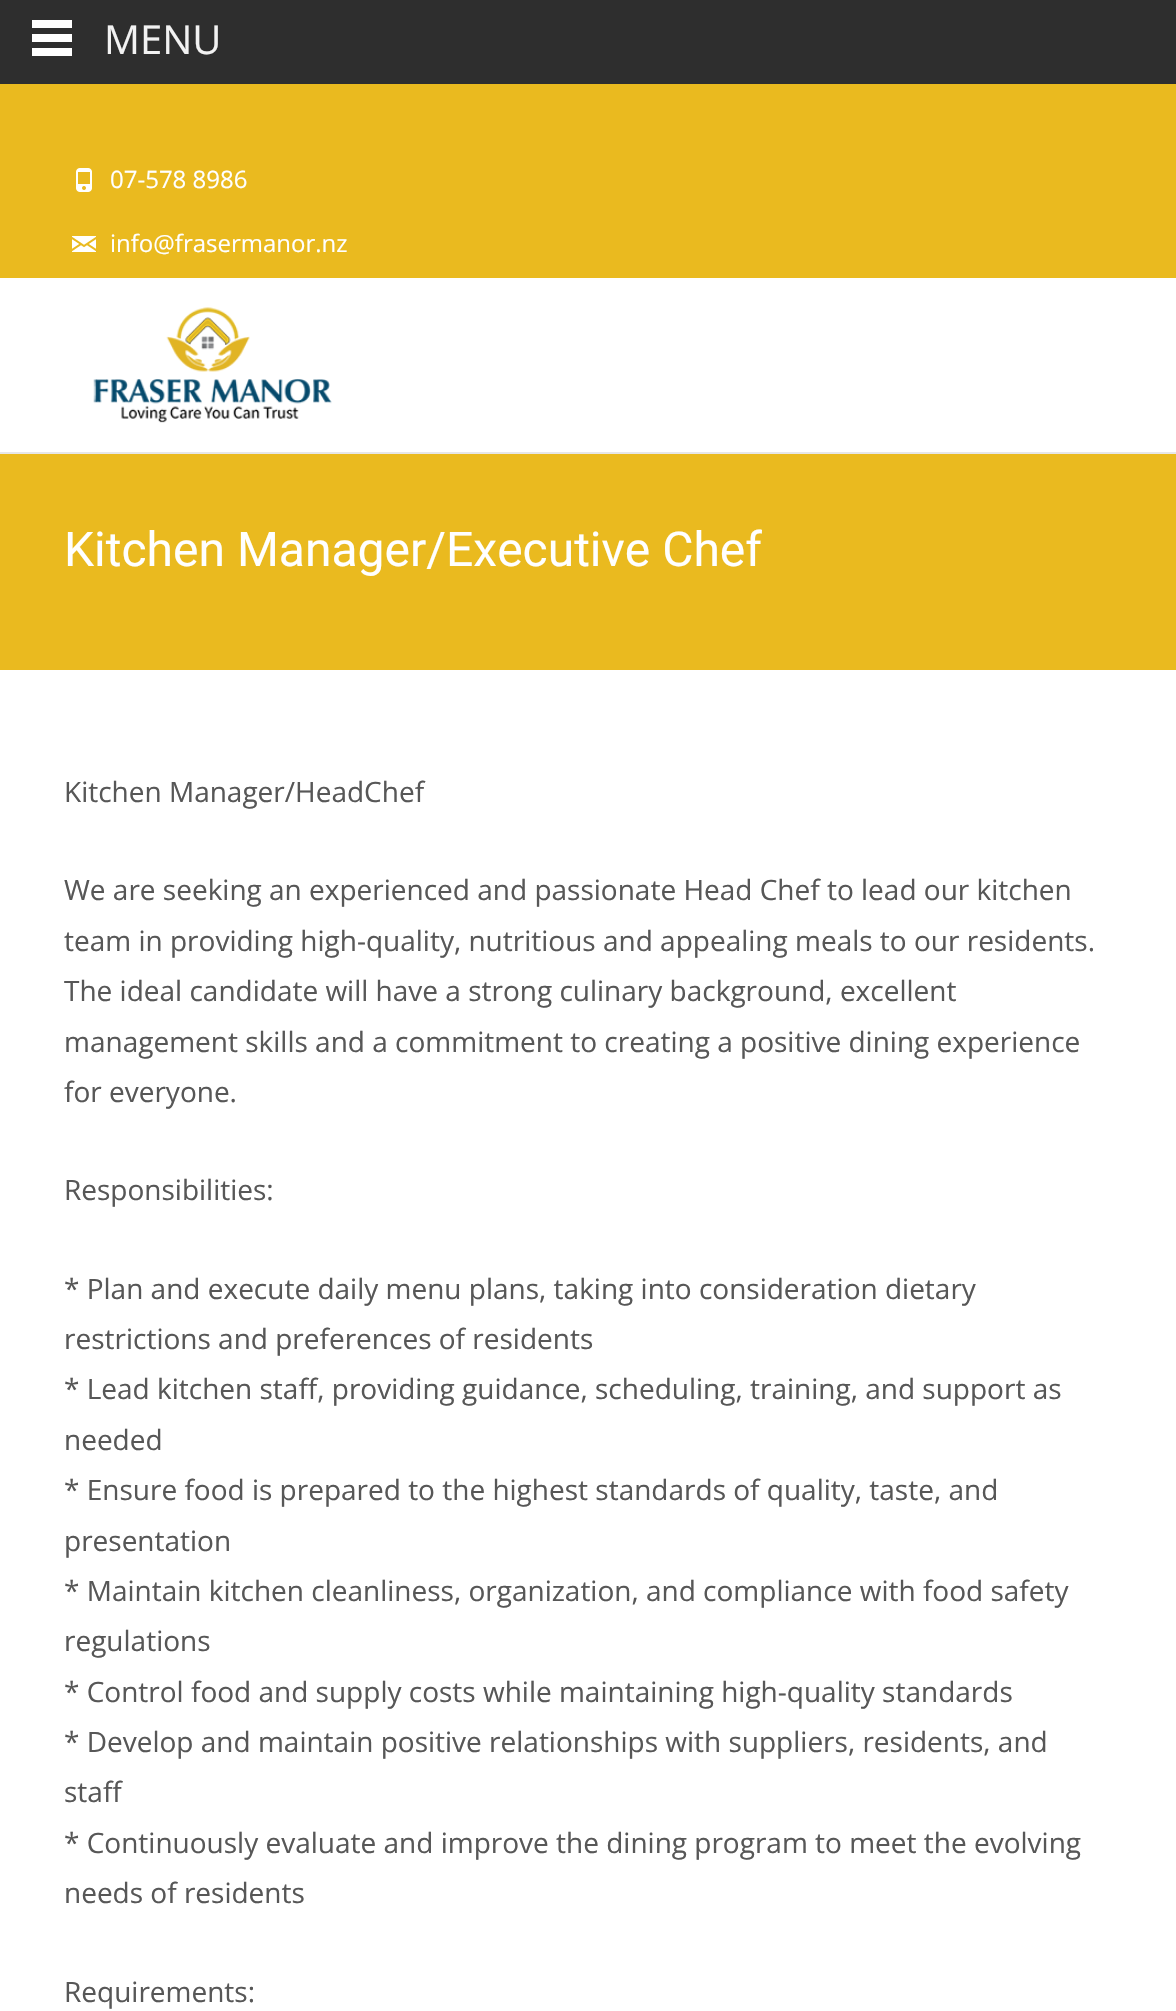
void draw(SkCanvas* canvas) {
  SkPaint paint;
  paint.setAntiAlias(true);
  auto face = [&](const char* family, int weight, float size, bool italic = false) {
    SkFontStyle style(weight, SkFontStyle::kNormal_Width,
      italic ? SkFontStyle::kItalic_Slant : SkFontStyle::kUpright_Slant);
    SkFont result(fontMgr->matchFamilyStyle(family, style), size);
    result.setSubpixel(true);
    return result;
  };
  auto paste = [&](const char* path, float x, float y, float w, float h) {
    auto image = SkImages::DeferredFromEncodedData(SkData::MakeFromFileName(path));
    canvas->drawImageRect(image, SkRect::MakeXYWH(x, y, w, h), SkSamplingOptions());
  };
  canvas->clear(0xffffffff);
  {
    const struct { float x, y, w, h; SkColor color; } items[] = {
      {0, 0, 1176, 84, 0xff2e2e2e},
      {32, 20, 40, 8, 0xffffffff},
      {32, 34, 40, 8, 0xffffffff},
      {32, 48, 40, 8, 0xffffffff},
      {0, 84, 1176, 194, 0xffeaba1f},
    };
    for (auto [x, y, w, h, color] : items) {
      paint.setColor(color);
      canvas->drawRect(SkRect::MakeXYWH(x, y, w, h), paint);
    }
  }
  paste("img/1.png", 76, 168, 16, 24);
  paste("img/2.png", 72, 236, 24, 16);
  paint.setColor(0xffe7e7e7);
  canvas->drawRect(SkRect::MakeXYWH(0, 452, 1176, 2), paint);
  paste("img/3.png", 93, 307, 239, 116);
  paint.setColor(0xffeaba1f);
  canvas->drawRect(SkRect::MakeXYWH(0, 454, 1176, 216), paint);
  auto f0 = face("Open Sans", 400, 40);
  paint.setColor(0xfff2f2f2);
  canvas->drawString("MENU", 104, 54, f0, paint);
  auto f1 = face("Open Sans", 400, 24);
  paint.setColor(0xffffffff);
  canvas->drawString("07-578 8986", 110, 188, f1, paint);
  canvas->drawString("info@frasermanor.nz", 110, 252, f1, paint);
  auto f2 = face("Roboto", 400, 48);
  canvas->drawString("Kitchen Manager/Executive Chef", 64, 566, f2, paint);
  auto f3 = face("Open Sans", 400, 28);
  paint.setColor(0xff575757);
  {
    const struct { const char* s; float x, y; } items[] = {
      {"Kitchen Manager/HeadChef", 64, 802},
      {"We are seeking an experienced and passionate Head Chef to lead our kitchen", 64, 900},
      {"team in providing high-quality, nutritious and appealing meals to our residents.", 64, 951},
      {"The ideal candidate will have a strong culinary background, excellent", 64, 1001},
      {"management skills and a commitment to creating a positive dining experience", 64, 1052},
      {"for everyone.", 64, 1102},
      {"Responsibilities:", 64, 1200},
      {"* Plan and execute daily menu plans, taking into consideration dietary", 64, 1299},
      {"restrictions and preferences of residents", 64, 1349},
      {"* Lead kitchen staff, providing guidance, scheduling, training, and support as", 64, 1399},
      {"needed", 64, 1450},
      {"* Ensure food is prepared to the highest standards of quality, taste, and", 64, 1500},
      {"presentation", 64, 1551},
      {"* Maintain kitchen cleanliness, organization, and compliance with food safety", 64, 1601},
      {"regulations", 64, 1651},
      {"* Control food and supply costs while maintaining high-quality standards", 64, 1702},
      {"* Develop and maintain positive relationships with suppliers, residents, and", 64, 1752},
      {"staff", 64, 1802},
      {"* Continuously evaluate and improve the dining program to meet the evolving", 64, 1853},
      {"needs of residents", 64, 1903},
      {"Requirements:", 64, 2002},
    };
    for (auto [s, x, y] : items) {
      canvas->drawString(s, x, y, f3, paint);
    }
  }
}
